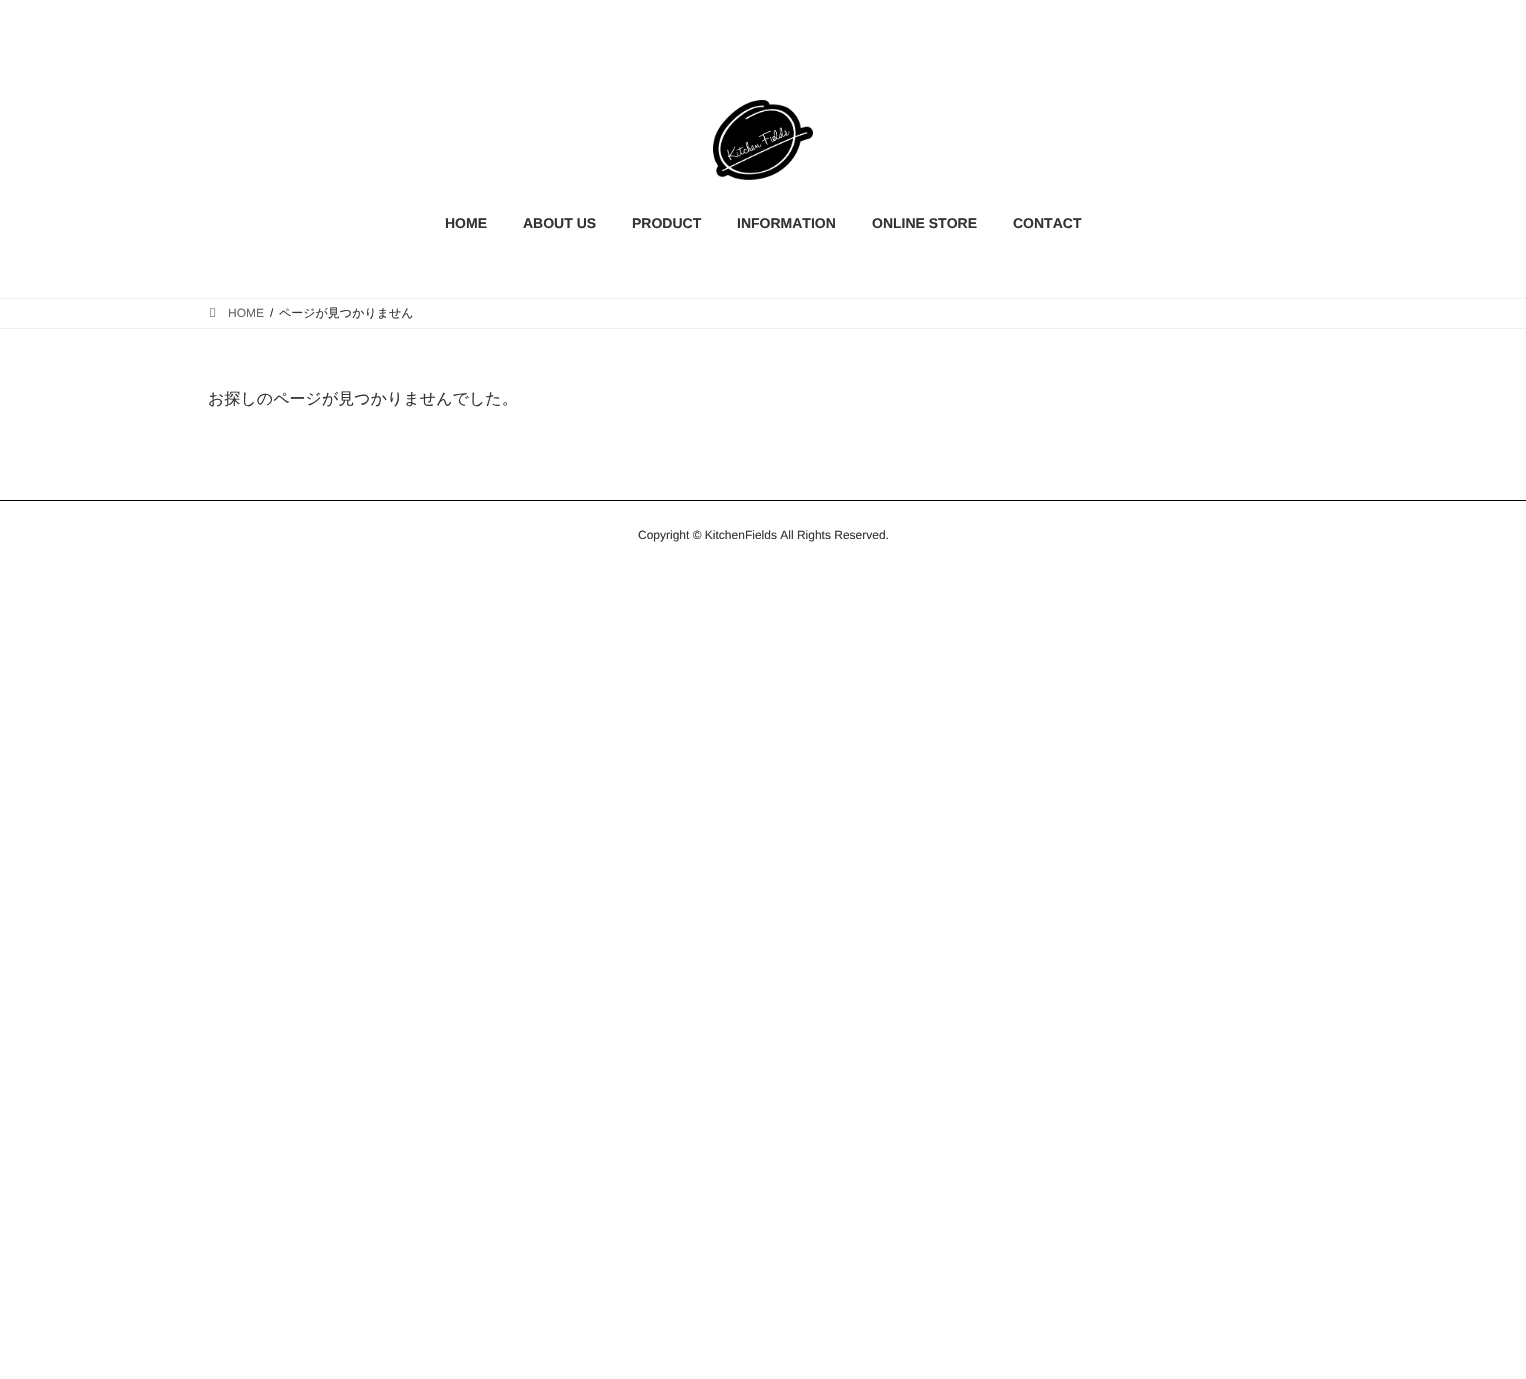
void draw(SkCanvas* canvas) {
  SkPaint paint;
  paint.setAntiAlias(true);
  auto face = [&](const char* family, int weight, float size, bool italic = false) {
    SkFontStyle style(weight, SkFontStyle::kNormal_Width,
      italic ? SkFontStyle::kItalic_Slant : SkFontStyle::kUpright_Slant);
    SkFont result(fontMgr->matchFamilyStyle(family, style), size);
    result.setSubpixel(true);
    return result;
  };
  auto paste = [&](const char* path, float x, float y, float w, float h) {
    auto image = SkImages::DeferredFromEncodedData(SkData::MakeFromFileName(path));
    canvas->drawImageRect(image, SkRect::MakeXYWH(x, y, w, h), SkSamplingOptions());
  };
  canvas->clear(0xffffffff);
  paste("img/1.png", 713, 100, 100, 80);
  paint.setColor(0xfff0f0f0);
  canvas->drawRect(SkRect::MakeXYWH(0, 298, 1526, 1), paint);
  canvas->drawRect(SkRect::MakeXYWH(0, 328, 1526, 1), paint);
  paste("img/2.png", 210, 308, 6, 9);
  paint.setColor(0xff000000);
  canvas->drawRect(SkRect::MakeXYWH(0, 500, 1526, 1), paint);
  auto f0 = face("Liberation Sans", 700, 14);
  paint.setColor(0xff333333);
  {
    const struct { const char* s; float x, y; } items[] = {
      {"HOME", 445, 228},
      {"ABOUT US", 523, 228},
      {"PRODUCT", 632, 228},
      {"INFORMATION", 737, 228},
      {"ONLINE STORE", 872, 228},
      {"CONTACT", 1013, 228},
    };
    for (auto [s, x, y] : items) {
      canvas->drawString(s, x, y, f0, paint);
    }
  }
  auto f1 = face("Liberation Sans", 400, 12);
  paint.setColor(0xff666666);
  canvas->drawString("HOME", 228, 317, f1, paint);
  paint.setColor(0xff333333);
  canvas->drawString("/", 270, 317, f1, paint);
  auto f2 = face("WenQuanYi Zen Hei", 500, 12);
  canvas->drawString("ページが見つかりません", 279, 317, f2, paint);
  auto f3 = face("WenQuanYi Zen Hei", 500, 16);
  canvas->drawString("お探しのページが見つかりませんでした。", 208, 404, f3, paint);
  canvas->drawString("Copyright © KitchenFields All Rights Reserved.", 638, 539, f1, paint);
}
